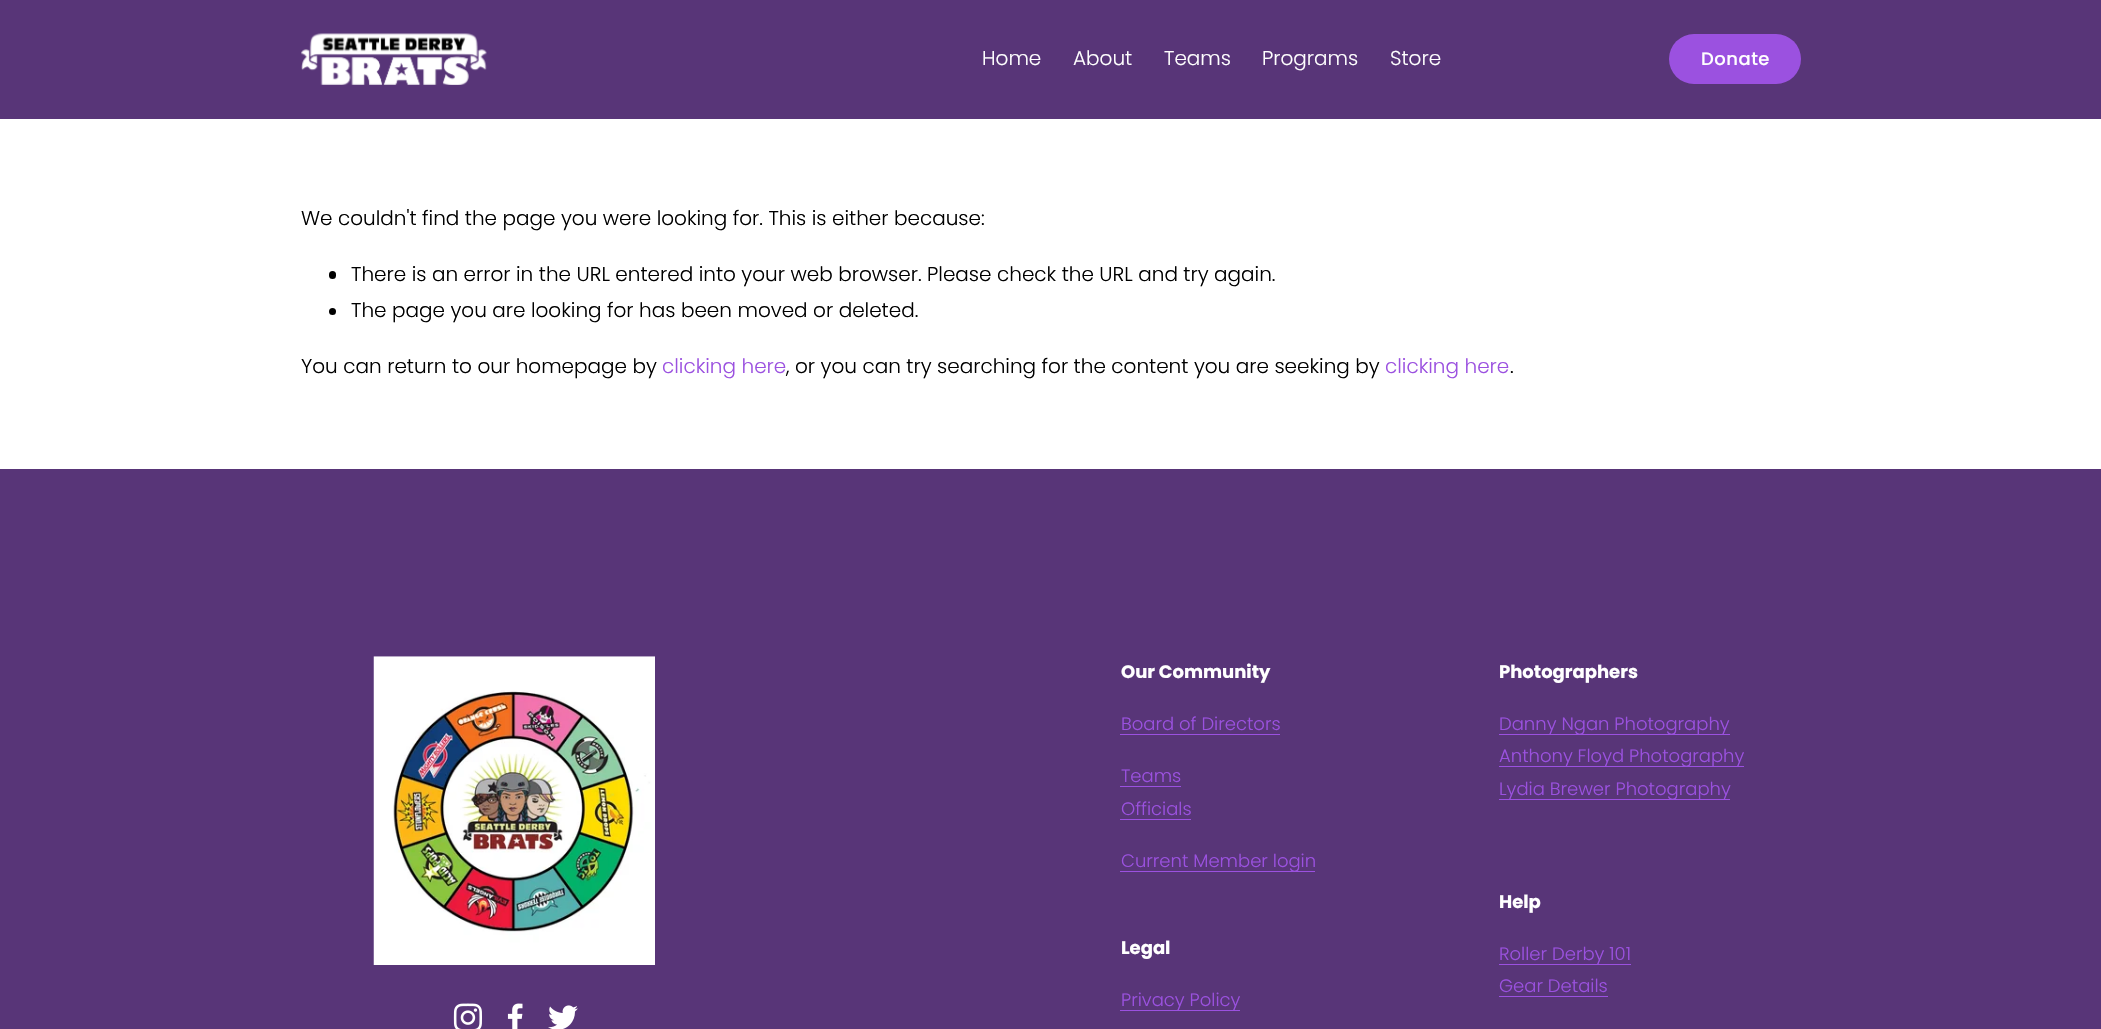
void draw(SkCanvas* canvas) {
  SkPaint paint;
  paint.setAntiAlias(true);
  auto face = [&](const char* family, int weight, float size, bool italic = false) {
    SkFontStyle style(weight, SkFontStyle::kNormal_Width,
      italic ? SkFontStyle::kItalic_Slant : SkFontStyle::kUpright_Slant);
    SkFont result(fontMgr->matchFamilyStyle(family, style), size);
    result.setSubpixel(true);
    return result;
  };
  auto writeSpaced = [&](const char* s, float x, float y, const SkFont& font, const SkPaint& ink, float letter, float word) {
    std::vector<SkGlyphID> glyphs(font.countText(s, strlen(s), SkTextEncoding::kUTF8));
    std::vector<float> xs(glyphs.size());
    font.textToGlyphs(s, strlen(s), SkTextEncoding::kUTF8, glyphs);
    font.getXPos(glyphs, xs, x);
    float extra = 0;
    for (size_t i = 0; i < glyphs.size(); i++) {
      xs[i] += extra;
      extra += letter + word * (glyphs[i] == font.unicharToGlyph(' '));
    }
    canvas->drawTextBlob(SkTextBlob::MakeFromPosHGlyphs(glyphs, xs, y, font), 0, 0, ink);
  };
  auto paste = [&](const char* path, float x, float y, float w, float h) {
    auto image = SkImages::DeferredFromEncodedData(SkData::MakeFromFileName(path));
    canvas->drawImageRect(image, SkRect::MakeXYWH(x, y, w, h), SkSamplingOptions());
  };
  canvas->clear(0xffffffff);
  paint.setColor(0xff583578);
  canvas->drawRect(SkRect::MakeXYWH(0, 0, 2101, 119), paint);
  paste("img/1.png", 301, 33, 186, 52);
  paint.setColor(0xff9b51e0);
  canvas->drawRoundRect(SkRect::MakeXYWH(1669, 34, 132, 50), 25, 25, paint);
  paint.setColor(0xff000000);
  canvas->drawRoundRect(SkRect::MakeXYWH(329, 271, 7, 8), 3.5f, 3.5f, paint);
  canvas->drawCircle(332.5f, 311.5f, 3.5f, paint);
  paint.setColor(0xff583578);
  canvas->drawRect(SkRect::MakeXYWH(0, 469, 2101, 560), paint);
  paste("img/2.png", 373, 656, 282, 309);
  {
    const struct { float x, y, w, h; SkColor color; } items[] = {
      {1120, 734, 160, 1, 0xff9b51e0},
      {1120, 786, 61, 1, 0xff9b51e0},
      {1120, 819, 71, 1, 0xff9b51e0},
      {1120, 871, 195, 1, 0xff9b51e0},
      {1499, 734, 231, 1, 0xff9b51e0},
      {1499, 766, 245, 1, 0xff9b51e0},
      {1499, 799, 231, 1, 0xff9b51e0},
      {1120, 1010, 120, 1, 0xff9b51e0},
      {1499, 964, 132, 1, 0xff9b51e0},
      {1499, 996, 109, 1, 0xff9b51e0},
    };
    for (auto [x, y, w, h, color] : items) {
      paint.setColor(color);
      canvas->drawRect(SkRect::MakeXYWH(x, y, w, h), paint);
    }
  }
  paste("img/3.png", 453, 1003, 29, 26);
  paste("img/4.png", 507, 1003, 16, 26);
  paste("img/5.png", 548, 1005, 30, 24);
  auto f0 = face("Poppins", 300, 20);
  paint.setColor(0xffffffff);
  {
    const struct { const char* s; float x, y; } items[] = {
      {"Home", 982, 65},
      {"About", 1073, 65},
      {"Teams", 1164, 65},
      {"Programs", 1262, 65},
      {"Store", 1390, 65},
    };
    for (auto [s, x, y] : items) {
      canvas->drawString(s, x, y, f0, paint);
    }
  }
  auto f1 = face("Poppins", 500, 18);
  writeSpaced("Donate", 1701, 65, f1, paint, 0.5f, 0);
  paint.setColor(0xff000000);
  {
    const struct { const char* s; float x, y; } items[] = {
      {"We couldn't find the page you were looking for. This is either because:", 301, 225},
      {"There is an error in the URL entered into your web browser. Please check the URL and try again.", 351, 281},
      {"The page you are looking for has been moved or deleted.", 351, 317},
      {"You can return to our homepage by", 301, 373},
    };
    for (auto [s, x, y] : items) {
      canvas->drawString(s, x, y, f0, paint);
    }
  }
  paint.setColor(0xff9b51e0);
  canvas->drawString("clicking here", 662, 373, f0, paint);
  paint.setColor(0xff000000);
  canvas->drawString(", or you can try searching for the content you are seeking by", 786, 373, f0, paint);
  paint.setColor(0xff9b51e0);
  canvas->drawString("clicking here", 1385, 373, f0, paint);
  paint.setColor(0xff000000);
  canvas->drawString(".", 1510, 373, f0, paint);
  auto f2 = face("Poppins", 700, 18);
  paint.setColor(0xffffffff);
  canvas->drawString("Our Community", 1121, 678, f2, paint);
  auto f3 = face("Poppins", 300, 18);
  paint.setColor(0xff9b51e0);
  {
    const struct { const char* s; float x, y; } items[] = {
      {"Board of Directors", 1121, 730},
      {"Teams", 1121, 782},
      {"Officials", 1121, 815},
      {"Current Member login", 1121, 867},
    };
    for (auto [s, x, y] : items) {
      canvas->drawString(s, x, y, f3, paint);
    }
  }
  paint.setColor(0xffffffff);
  canvas->drawString("Photographers", 1499, 678, f2, paint);
  paint.setColor(0xff9b51e0);
  {
    const struct { const char* s; float x, y; } items[] = {
      {"Danny Ngan Photography", 1499, 730},
      {"Anthony Floyd Photography", 1499, 762},
      {"Lydia Brewer Photography", 1499, 795},
    };
    for (auto [s, x, y] : items) {
      canvas->drawString(s, x, y, f3, paint);
    }
  }
  paint.setColor(0xffffffff);
  canvas->drawString("Legal", 1121, 954, f2, paint);
  paint.setColor(0xff9b51e0);
  canvas->drawString("Privacy Policy", 1121, 1006, f3, paint);
  paint.setColor(0xffffffff);
  canvas->drawString("Help", 1499, 908, f2, paint);
  paint.setColor(0xff9b51e0);
  canvas->drawString("Roller Derby 101", 1499, 960, f3, paint);
  canvas->drawString("Gear Details", 1499, 992, f3, paint);
}
